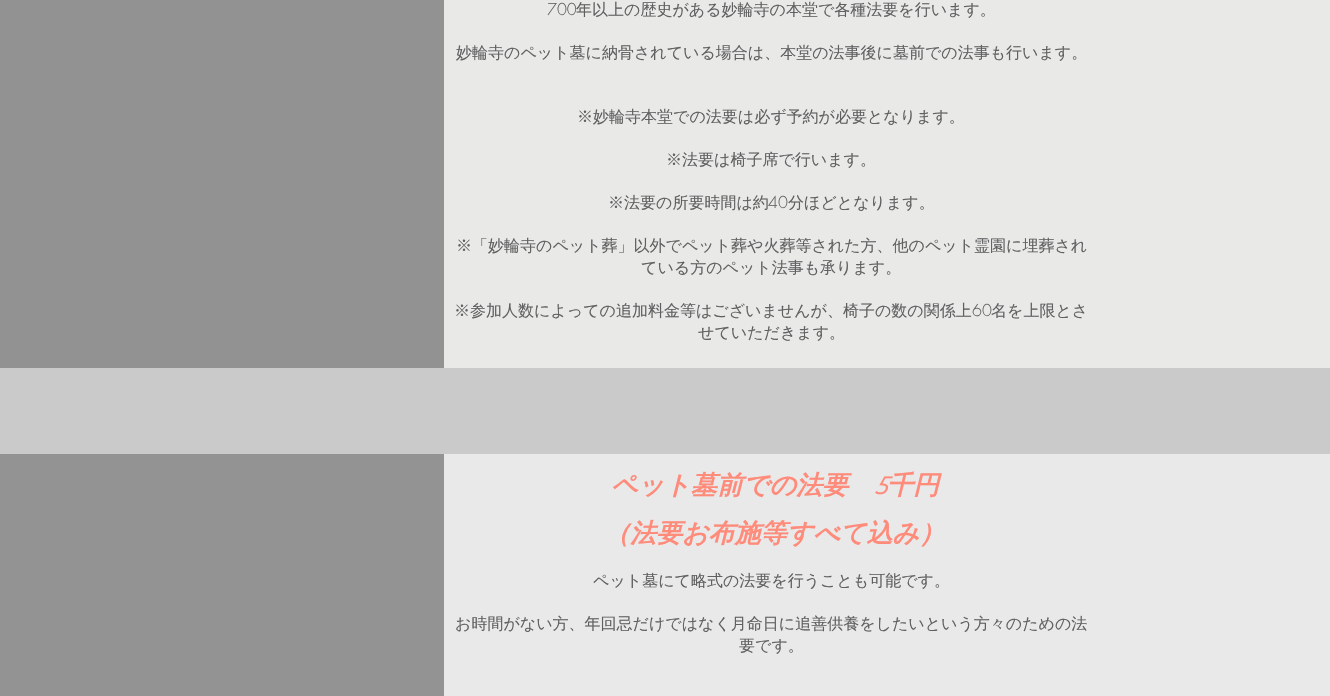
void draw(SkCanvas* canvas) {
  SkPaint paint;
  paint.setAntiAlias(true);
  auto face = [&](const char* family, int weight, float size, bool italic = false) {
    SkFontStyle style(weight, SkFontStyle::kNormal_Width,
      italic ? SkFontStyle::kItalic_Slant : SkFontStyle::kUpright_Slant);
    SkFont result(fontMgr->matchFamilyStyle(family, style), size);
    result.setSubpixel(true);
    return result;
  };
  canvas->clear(0xffcacaca);
  {
    const struct { float x, y, w, h; SkColor color; } items[] = {
      {0, 0, 444, 368, 0xff929292},
      {444, 0, 886, 368, 0xffe9e9e8},
      {0, 454, 444, 242, 0xff939393},
      {444, 454, 886, 242, 0xffe9e9e9},
    };
    for (auto [x, y, w, h, color] : items) {
      paint.setColor(color);
      canvas->drawRect(SkRect::MakeXYWH(x, y, w, h), paint);
    }
  }
  auto f0 = face("futura", 300, 16);
  paint.setColor(0xff606060);
  canvas->drawString("700", 547, 15, f0, paint);
  auto f1 = face("WenQuanYi Zen Hei", 500, 16);
  {
    const struct { const char* s; float x, y; } items[] = {
      {"年以上の歴史がある妙輪寺の本堂で各種法要を行います。", 576, 15},
      {"妙輪寺のペット墓に納骨されている場合は、本堂の法事後に墓前での法事も行います。", 456, 58},
      {"※妙輪寺本堂での法要は必ず予約が必要となります。", 577, 122},
      {"※法要は椅子席で行います。", 666, 165},
      {"※法要の所要時間は約", 608, 208},
    };
    for (auto [s, x, y] : items) {
      canvas->drawString(s, x, y, f1, paint);
    }
  }
  canvas->drawString("40", 768, 208, f0, paint);
  {
    const struct { const char* s; float x, y; } items[] = {
      {"分ほどとなります。", 788, 208},
      {"※「妙輪寺のペット葬」以外でペット葬や火葬等された方、他のペット霊園に埋葬され", 456, 251},
      {"ている方のペット法事も承ります。", 641, 273},
      {"※参加人数によっての追加料金等はございませんが、椅子の数の関係上", 454, 316},
    };
    for (auto [s, x, y] : items) {
      canvas->drawString(s, x, y, f1, paint);
    }
  }
  canvas->drawString("60", 972, 316, f0, paint);
  canvas->drawString("名を上限とさ", 991, 316, f1, paint);
  canvas->drawString("せていただきます。", 698, 338, f1, paint);
  auto f2 = face("WenQuanYi Zen Hei", 700, 26, true);
  paint.setColor(0xffff8b7b);
  canvas->drawString("ペット墓前での法要", 611, 494, f2, paint);
  auto f3 = face("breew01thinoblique", 700, 26, true);
  canvas->drawString("5", 874, 494, f3, paint);
  canvas->drawString("千円", 887, 494, f2, paint);
  canvas->drawString("（法要お布施等すべて込み）", 604, 542, f2, paint);
  paint.setColor(0xff606060);
  {
    const struct { const char* s; float x, y; } items[] = {
      {"ペット墓にて略式の法要を行うことも可能です。", 593, 586},
      {"お時間がない方、年回忌だけではなく月命日に追善供養をしたいという方々のための法", 455, 629},
      {"要です。", 739, 651},
    };
    for (auto [s, x, y] : items) {
      canvas->drawString(s, x, y, f1, paint);
    }
  }
}
